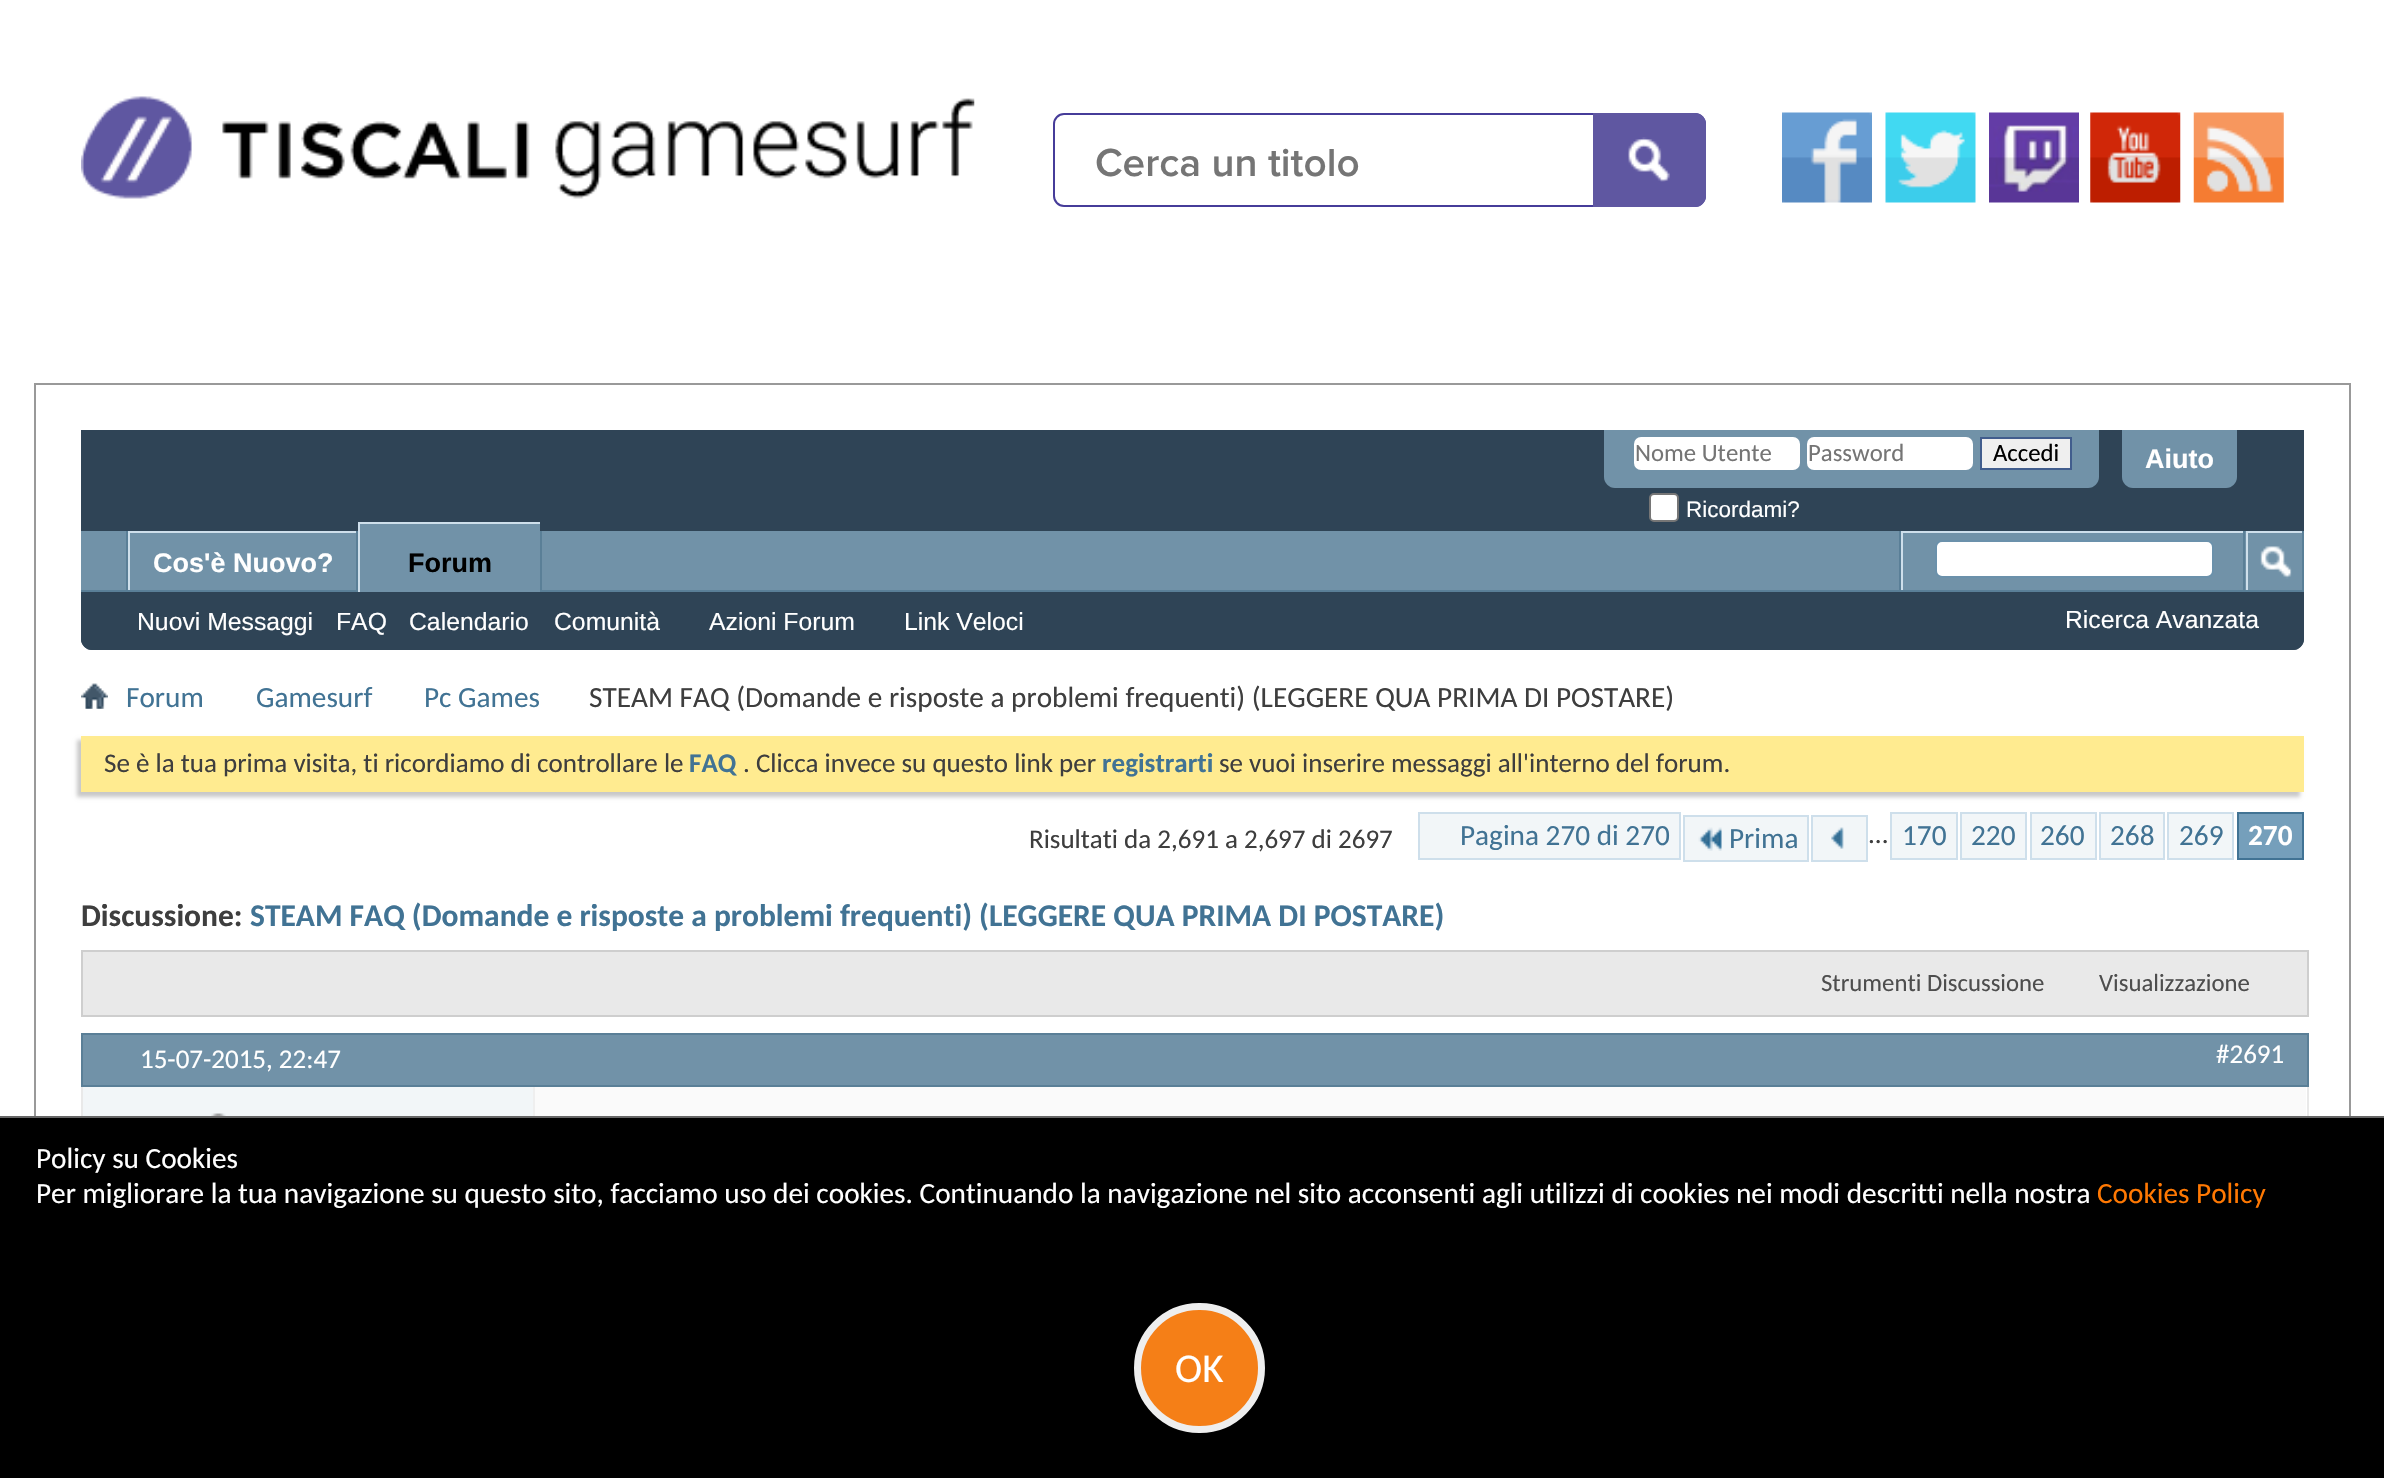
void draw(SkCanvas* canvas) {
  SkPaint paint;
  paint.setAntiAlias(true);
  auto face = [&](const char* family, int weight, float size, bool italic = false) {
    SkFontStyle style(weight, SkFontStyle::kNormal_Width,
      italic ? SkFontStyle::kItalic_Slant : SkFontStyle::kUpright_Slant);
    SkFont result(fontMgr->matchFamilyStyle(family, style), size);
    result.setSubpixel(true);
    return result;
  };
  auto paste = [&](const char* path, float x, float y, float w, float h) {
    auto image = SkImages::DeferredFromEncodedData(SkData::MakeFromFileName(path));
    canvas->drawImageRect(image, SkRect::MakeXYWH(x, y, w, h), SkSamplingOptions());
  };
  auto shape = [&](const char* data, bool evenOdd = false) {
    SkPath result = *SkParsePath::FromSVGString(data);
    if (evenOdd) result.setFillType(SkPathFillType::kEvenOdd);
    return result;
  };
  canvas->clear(0xffffffff);
  paste("img/1.png", 81, 96, 894, 103);
  paint.setStroke(true);
  paint.setStrokeWidth(2);
  paint.setColor(0xff463c99);
  canvas->drawRoundRect(SkRect::MakeXYWH(1054, 114, 651, 92), 10, 10, paint);
  paint.setStroke(false);
  paint.setColor(0xff5f57a1);
  canvas->drawPath(shape("M1593 113H1695C1701 113 1706 118 1706 124V196C1706 202 1701 207 1695 207H1593Z"), paint);
  paste("img/2.png", 1628, 137, 42, 45);
  paste("img/3.png", 1782, 112, 90, 91);
  paste("img/4.png", 1885, 112, 91, 91);
  paste("img/5.png", 1989, 112, 90, 91);
  paste("img/6.png", 2090, 112, 91, 91);
  paste("img/7.png", 2193, 112, 91, 91);
  paint.setStroke(true);
  paint.setColor(0xff999999);
  canvas->drawRect(SkRect::MakeXYWH(35, 384, 2315, 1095), paint);
  paint.setStroke(false);
  paint.setColor(0xff2f4456);
  canvas->drawPath(shape("M81 430H2304V639C2304 645 2299 650 2293 650H92C86 650 81 645 81 639Z"), paint);
  paint.setColor(0xff7192a8);
  canvas->drawPath(shape("M1604 430H2099V477C2099 483 2094 488 2088 488H1615C1609 488 1604 483 1604 477Z"), paint);
  paint.setColor(0xffffffff);
  canvas->drawRoundRect(SkRect::MakeXYWH(1634, 437, 166, 33), 7, 7, paint);
  canvas->drawRoundRect(SkRect::MakeXYWH(1807, 437, 166, 33), 7, 7, paint);
  paint.setColor(0xffefefef);
  canvas->drawRect(SkRect::MakeXYWH(1981, 438, 90, 31), paint);
  paint.setStroke(true);
  paint.setColor(0xff415d8d);
  canvas->drawRect(SkRect::MakeXYWH(1981, 438, 90, 31), paint);
  paint.setStroke(false);
  paint.setColor(0xffffffff);
  canvas->drawRoundRect(SkRect::MakeXYWH(1650, 494, 28, 27), 4, 4, paint);
  paint.setStroke(true);
  paint.setColor(0xff767676);
  canvas->drawRoundRect(SkRect::MakeXYWH(1650, 494, 28, 27), 4, 4, paint);
  paint.setStroke(false);
  paint.setColor(0xff7192a8);
  canvas->drawPath(shape("M2122 430H2237V477C2237 483 2232 488 2226 488H2133C2127 488 2122 483 2122 477Z"), paint);
  paint.setColor(0xff2f4456);
  canvas->drawPath(shape("M81 531H2304V639C2304 645 2299 650 2293 650H92C86 650 81 645 81 639Z"), paint);
  {
    const struct { float x, y, w, h; SkColor color; } items[] = {
      {81, 531, 2221, 59, 0xff7192a8},
      {356, 531, 2, 61, 0xff5a7f97},
      {126, 531, 2, 61, 0xff5a7f97},
      {128, 531, 228, 2, 0xffcedfeb},
      {128, 531, 2, 61, 0xffcedfeb},
      {540, 531, 2, 59, 0xff5a7f97},
      {81, 590, 2223, 2, 0xff5a7f97},
      {360, 524, 180, 68, 0xff7192a8},
      {358, 522, 182, 2, 0xffcedfeb},
      {358, 522, 2, 70, 0xffcedfeb},
      {1899, 531, 2, 59, 0xff5a7f97},
      {1901, 531, 342, 2, 0xffcedfeb},
      {1901, 531, 2, 59, 0xffcedfeb},
    };
    for (auto [x, y, w, h, color] : items) {
      paint.setColor(color);
      canvas->drawRect(SkRect::MakeXYWH(x, y, w, h), paint);
    }
  }
  paint.setColor(0xffffffff);
  canvas->drawRoundRect(SkRect::MakeXYWH(1936, 541, 277, 36), 6, 6, paint);
  paint.setStroke(true);
  paint.setColor(0xff6b91ab);
  canvas->drawRoundRect(SkRect::MakeXYWH(1936, 541, 277, 36), 6, 6, paint);
  paint.setStroke(false);
  {
    const struct { float x, y, w, h; SkColor color; } items[] = {
      {2302, 531, 2, 59, 0xff5a7f97},
      {2243, 531, 2, 59, 0xff5a7f97},
      {2246, 531, 56, 2, 0xffcedfeb},
      {2246, 531, 2, 59, 0xffcedfeb},
    };
    for (auto [x, y, w, h, color] : items) {
      paint.setColor(color);
      canvas->drawRect(SkRect::MakeXYWH(x, y, w, h), paint);
    }
  }
  paste("img/8.png", 2260, 546, 32, 33);
  paste("img/9.png", 81, 683, 27, 26);
  paint.setColor(0xffc8c8c8);
  paint.setMaskFilter(SkMaskFilter::MakeBlur(kNormal_SkBlurStyle, 2));
  canvas->drawRect(SkRect::MakeXYWH(77, 740, 2223, 57), paint);
  paint.setMaskFilter(nullptr);
  paint.setColor(0xffffeb90);
  canvas->drawRect(SkRect::MakeXYWH(81, 736, 2223, 56), paint);
  paint.setColor(0xfff2f6f8);
  canvas->drawRect(SkRect::MakeXYWH(1419, 813, 261, 46), paint);
  paint.setStroke(true);
  paint.setColor(0xffcedfeb);
  canvas->drawRect(SkRect::MakeXYWH(1419, 813, 261, 46), paint);
  paint.setStroke(false);
  paint.setColor(0xfff2f6f8);
  canvas->drawRect(SkRect::MakeXYWH(1685, 817, 122, 43), paint);
  paste("img/10.png", 1698, 827, 24, 24);
  {
    const struct { float x, y, w, h; SkColor color; } items[] = {
      {1683, 815, 126, 2, 0xffcedfeb},
      {1683, 860, 45, 2, 0xffcedfeb},
      {1683, 815, 2, 47, 0xffcedfeb},
      {1807, 815, 2, 47, 0xffcedfeb},
      {1728, 860, 81, 2, 0xffcedfeb},
    };
    for (auto [x, y, w, h, color] : items) {
      paint.setColor(color);
      canvas->drawRect(SkRect::MakeXYWH(x, y, w, h), paint);
    }
  }
  paint.setColor(0xfff2f6f8);
  canvas->drawRect(SkRect::MakeXYWH(1812, 816, 55, 45), paint);
  paint.setStroke(true);
  paint.setColor(0xffcedfeb);
  canvas->drawRect(SkRect::MakeXYWH(1812, 816, 55, 45), paint);
  paste("img/11.png", 1831, 827, 13, 22);
  paint.setStroke(false);
  paint.setColor(0xfff2f6f8);
  canvas->drawRect(SkRect::MakeXYWH(1891, 813, 66, 46), paint);
  paint.setStroke(true);
  paint.setColor(0xffcedfeb);
  canvas->drawRect(SkRect::MakeXYWH(1891, 813, 66, 46), paint);
  paint.setStroke(false);
  paint.setColor(0xfff2f6f8);
  canvas->drawRect(SkRect::MakeXYWH(1961, 813, 65, 46), paint);
  paint.setStroke(true);
  paint.setColor(0xffcedfeb);
  canvas->drawRect(SkRect::MakeXYWH(1961, 813, 65, 46), paint);
  paint.setStroke(false);
  paint.setColor(0xfff2f6f8);
  canvas->drawRect(SkRect::MakeXYWH(2031, 813, 65, 46), paint);
  paint.setStroke(true);
  paint.setColor(0xffcedfeb);
  canvas->drawRect(SkRect::MakeXYWH(2031, 813, 65, 46), paint);
  paint.setStroke(false);
  paint.setColor(0xfff2f6f8);
  canvas->drawRect(SkRect::MakeXYWH(2100, 813, 64, 46), paint);
  paint.setStroke(true);
  paint.setColor(0xffcedfeb);
  canvas->drawRect(SkRect::MakeXYWH(2100, 813, 64, 46), paint);
  paint.setStroke(false);
  paint.setColor(0xfff2f6f8);
  canvas->drawRect(SkRect::MakeXYWH(2168, 813, 65, 46), paint);
  paint.setStroke(true);
  paint.setColor(0xffcedfeb);
  canvas->drawRect(SkRect::MakeXYWH(2168, 813, 65, 46), paint);
  paint.setStroke(false);
  paint.setColor(0xff759fbb);
  canvas->drawRect(SkRect::MakeXYWH(2238, 813, 65, 46), paint);
  paint.setStroke(true);
  paint.setColor(0xff417394);
  canvas->drawRect(SkRect::MakeXYWH(2238, 813, 65, 46), paint);
  paint.setStroke(false);
  paint.setColor(0xffe9e9e9);
  canvas->drawRect(SkRect::MakeXYWH(82, 951, 2226, 65), paint);
  paint.setStroke(true);
  paint.setColor(0xffcecece);
  canvas->drawRect(SkRect::MakeXYWH(82, 951, 2226, 65), paint);
  paint.setColor(0xffe9e9e9);
  canvas->drawRect(SkRect::MakeXYWH(82, 1034, 2226, 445), paint);
  paint.setStroke(false);
  paint.setColor(0xff7192a8);
  canvas->drawRect(SkRect::MakeXYWH(82, 1034, 2226, 52), paint);
  paint.setStroke(true);
  paint.setColor(0xff5a7f97);
  canvas->drawRect(SkRect::MakeXYWH(82, 1034, 2226, 52), paint);
  paint.setStroke(false);
  paint.setColor(0xfff2f6f8);
  canvas->drawRect(SkRect::MakeXYWH(83, 1087, 450, 29), paint);
  paste("img/12.png", 211, 1113, 15, 3);
  {
    const struct { float x, y, w, h; SkColor color; } items[] = {
      {535, 1087, 1771, 29, 0xfffafafa},
      {533, 1087, 2, 29, 0xffefefef},
      {0, 1118, 2384, 360, 0xff000000},
      {0, 1116, 2384, 2, 0xff666666},
    };
    for (auto [x, y, w, h, color] : items) {
      paint.setColor(color);
      canvas->drawRect(SkRect::MakeXYWH(x, y, w, h), paint);
    }
  }
  paint.setColor(0xfff57f17);
  canvas->drawRoundRect(SkRect::MakeXYWH(1137.5f, 1306.5f, 124, 123), 61.5f, 61.5f, paint);
  paint.setStroke(true);
  paint.setStrokeWidth(7);
  paint.setColor(0xffeeeeee);
  canvas->drawRoundRect(SkRect::MakeXYWH(1137.5f, 1306.5f, 124, 123), 61.5f, 61.5f, paint);
  auto f0 = face("Proxima Nova", 600, 40.5f);
  paint.setStroke(false);
  paint.setColor(0xff757575);
  canvas->drawString("Cerca un titolo", 1095, 176, f0, paint);
  auto f1 = face("Carlito", 400, 24.75f);
  canvas->drawString("Nome Utente", 1635, 461, f1, paint);
  canvas->drawString("Password", 1808, 461, f1, paint);
  paint.setColor(0xff000000);
  canvas->drawString("Accedi", 1993, 461, f1, paint);
  auto f2 = face("Liberation Sans", 400, 22.5f);
  paint.setColor(0xffffffff);
  canvas->drawString("Ricordami?", 1686, 517, f2, paint);
  auto f3 = face("Liberation Sans", 700, 27);
  canvas->drawString("Aiuto", 2145, 468, f3, paint);
  canvas->drawString("Cos'è Nuovo?", 153, 572, f3, paint);
  paint.setColor(0xff000000);
  canvas->drawString("Forum", 408, 572, f3, paint);
  auto f4 = face("Liberation Sans", 400, 24.75f);
  paint.setColor(0xffffffff);
  {
    const struct { const char* s; float x, y; } items[] = {
      {"Nuovi Messaggi", 137, 630},
      {"FAQ", 336, 630},
      {"Calendario", 409, 630},
      {"Comunità", 554, 630},
      {"Azioni Forum", 709, 630},
      {"Link Veloci", 904, 630},
      {"Ricerca Avanzata", 2065, 628},
    };
    for (auto [s, x, y] : items) {
      canvas->drawString(s, x, y, f4, paint);
    }
  }
  auto f5 = face("Carlito", 400, 29.25f);
  paint.setColor(0xff417394);
  {
    const struct { const char* s; float x, y; } items[] = {
      {"Forum", 126, 707},
      {"Gamesurf", 256, 707},
      {"Pc Games", 424, 707},
    };
    for (auto [s, x, y] : items) {
      canvas->drawString(s, x, y, f5, paint);
    }
  }
  paint.setColor(0xff3e3e3e);
  canvas->drawString("STEAM FAQ (Domande e risposte a problemi frequenti) (LEGGERE QUA PRIMA DI POSTARE)", 589, 707, f5, paint);
  auto f6 = face("Carlito", 400, 27);
  canvas->drawString("Se è la tua prima visita, ti ricordiamo di controllare le", 104, 772, f6, paint);
  auto f7 = face("Carlito", 700, 27);
  paint.setColor(0xff417394);
  canvas->drawString("FAQ", 689, 772, f7, paint);
  paint.setColor(0xff3e3e3e);
  canvas->drawString(". Clicca invece su questo link per", 743, 772, f6, paint);
  paint.setColor(0xff417394);
  canvas->drawString("registrarti", 1102, 772, f7, paint);
  paint.setColor(0xff3e3e3e);
  canvas->drawString("se vuoi inserire messaggi all'interno del forum.", 1219, 772, f6, paint);
  canvas->drawString("Risultati da 2,691 a 2,697 di 2697", 1029, 848, f6, paint);
  paint.setColor(0xff417394);
  canvas->drawString("Pagina 270 di 270", 1460, 845, f5, paint);
  canvas->drawString("Prima", 1729, 848, f5, paint);
  paint.setColor(0xff3e3e3e);
  canvas->drawString("...", 1868, 843, f6, paint);
  paint.setColor(0xff417394);
  {
    const struct { const char* s; float x, y; } items[] = {
      {"170", 1902, 845},
      {"220", 1971, 845},
      {"260", 2040, 845},
      {"268", 2110, 845},
      {"269", 2179, 845},
    };
    for (auto [s, x, y] : items) {
      canvas->drawString(s, x, y, f5, paint);
    }
  }
  auto f8 = face("Carlito", 700, 29.25f);
  paint.setColor(0xffffffff);
  canvas->drawString("270", 2248, 845, f8, paint);
  auto f9 = face("Carlito", 700, 31.5f);
  paint.setColor(0xff3e3e3e);
  canvas->drawString("Discussione:", 81, 926, f9, paint);
  paint.setColor(0xff417394);
  canvas->drawString("STEAM FAQ (Domande e risposte a problemi frequenti) (LEGGERE QUA PRIMA DI POSTARE)", 250, 926, f9, paint);
  paint.setColor(0xff4e4e4e);
  canvas->drawString("Strumenti Discussione", 1821, 991, f1, paint);
  canvas->drawString("Visualizzazione", 2099, 991, f1, paint);
  paint.setColor(0xffffffff);
  canvas->drawString("15-07-2015, 22:47", 140, 1068, f6, paint);
  canvas->drawString("#2691", 2216, 1063, f6, paint);
  canvas->drawString("Policy su Cookies", 36, 1168, f5, paint);
  canvas->drawString("Per migliorare la tua navigazione su questo sito, facciamo uso dei cookies. Continuando la navigazione nel sito acconsenti agli utilizzi di cookies nei modi descritti nella nostra", 36, 1203, f5, paint);
  paint.setColor(0xffff7802);
  canvas->drawString("Cookies Policy", 2097, 1203, f5, paint);
  auto f10 = face("Carlito", 400, 41);
  paint.setColor(0xffffffff);
  canvas->drawString("OK", 1175, 1382, f10, paint);
}
